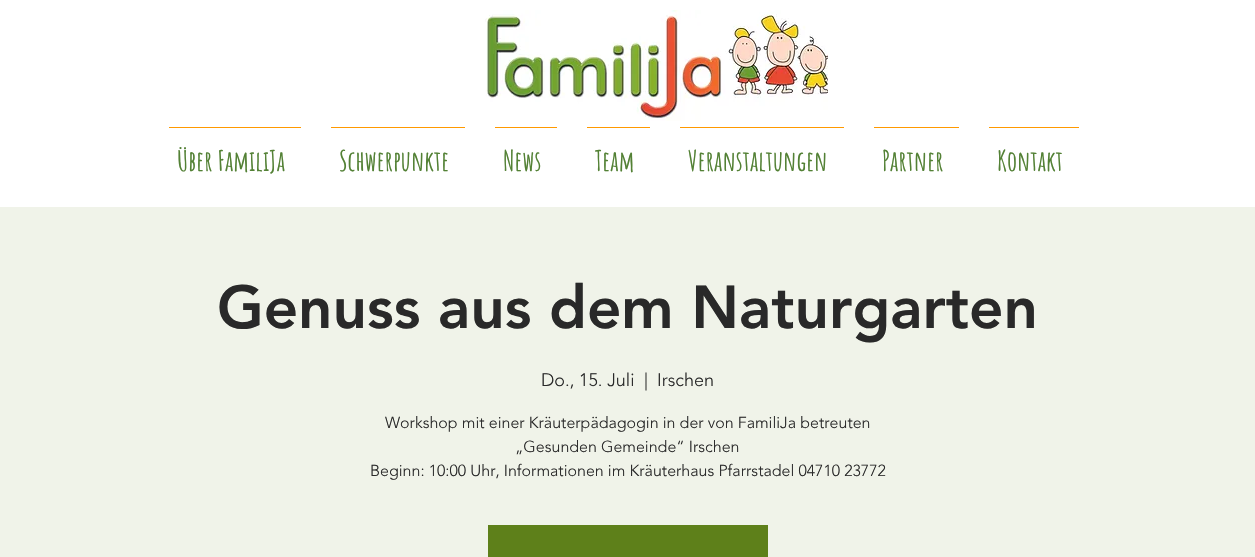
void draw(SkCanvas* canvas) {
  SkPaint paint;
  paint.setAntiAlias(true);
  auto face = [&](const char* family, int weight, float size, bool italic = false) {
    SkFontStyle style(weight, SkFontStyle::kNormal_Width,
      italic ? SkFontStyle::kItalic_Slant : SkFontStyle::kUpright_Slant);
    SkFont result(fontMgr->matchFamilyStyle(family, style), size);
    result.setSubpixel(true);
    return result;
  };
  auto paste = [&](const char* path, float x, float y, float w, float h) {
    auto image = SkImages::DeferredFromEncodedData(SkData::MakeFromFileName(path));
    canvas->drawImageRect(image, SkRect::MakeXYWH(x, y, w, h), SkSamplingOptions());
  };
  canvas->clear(0xffffffff);
  paste("img/1.png", 485, 10, 343, 111);
  {
    const struct { float x, y, w, h; SkColor color; } items[] = {
      {169, 127, 132, 1, 0xffff9900},
      {331, 127, 134, 1, 0xffff9900},
      {495, 127, 62, 1, 0xffff9900},
      {587, 127, 63, 1, 0xffff9900},
      {680, 127, 164, 1, 0xffff9900},
      {874, 127, 85, 1, 0xffff9900},
      {989, 127, 90, 1, 0xffff9900},
      {0, 207, 1255, 350, 0xfff0f3e9},
      {488, 525, 280, 32, 0xff5e801a},
    };
    for (auto [x, y, w, h, color] : items) {
      paint.setColor(color);
      canvas->drawRect(SkRect::MakeXYWH(x, y, w, h), paint);
    }
  }
  auto f0 = face("Amatic SC", 700, 28);
  paint.setColor(0xff538135);
  {
    const struct { const char* s; float x, y; } items[] = {
      {"Über FamiliJa", 177, 171},
      {"Schwerpunkte", 339, 171},
      {"News", 503, 171},
      {"Team", 595, 171},
      {"Veranstaltungen", 688, 171},
      {"Partner", 882, 171},
      {"Kontakt", 997, 171},
    };
    for (auto [s, x, y] : items) {
      canvas->drawString(s, x, y, f0, paint);
    }
  }
  auto f1 = face("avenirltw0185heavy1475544", 900, 60);
  paint.setColor(0xff292929);
  canvas->drawString("Genuss aus dem Naturgarten", 217, 328, f1, paint);
  auto f2 = face("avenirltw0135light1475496", 300, 18);
  {
    const struct { const char* s; float x, y; } items[] = {
      {"Do., 15. Juli", 541, 386},
      {"|", 644, 386},
      {"Irschen", 657, 386},
    };
    for (auto [s, x, y] : items) {
      canvas->drawString(s, x, y, f2, paint);
    }
  }
  auto f3 = face("avenirltw0135light1475496", 300, 16);
  {
    const struct { const char* s; float x, y; } items[] = {
      {"Workshop mit einer Kräuterpädagogin in der von FamiliJa betreuten", 385, 428},
      {"„Gesunden Gemeinde“ Irschen", 515, 452},
      {"Beginn: 10:00 Uhr, Informationen im Kräuterhaus Pfarrstadel 04710 23772", 370, 476},
    };
    for (auto [s, x, y] : items) {
      canvas->drawString(s, x, y, f3, paint);
    }
  }
}
